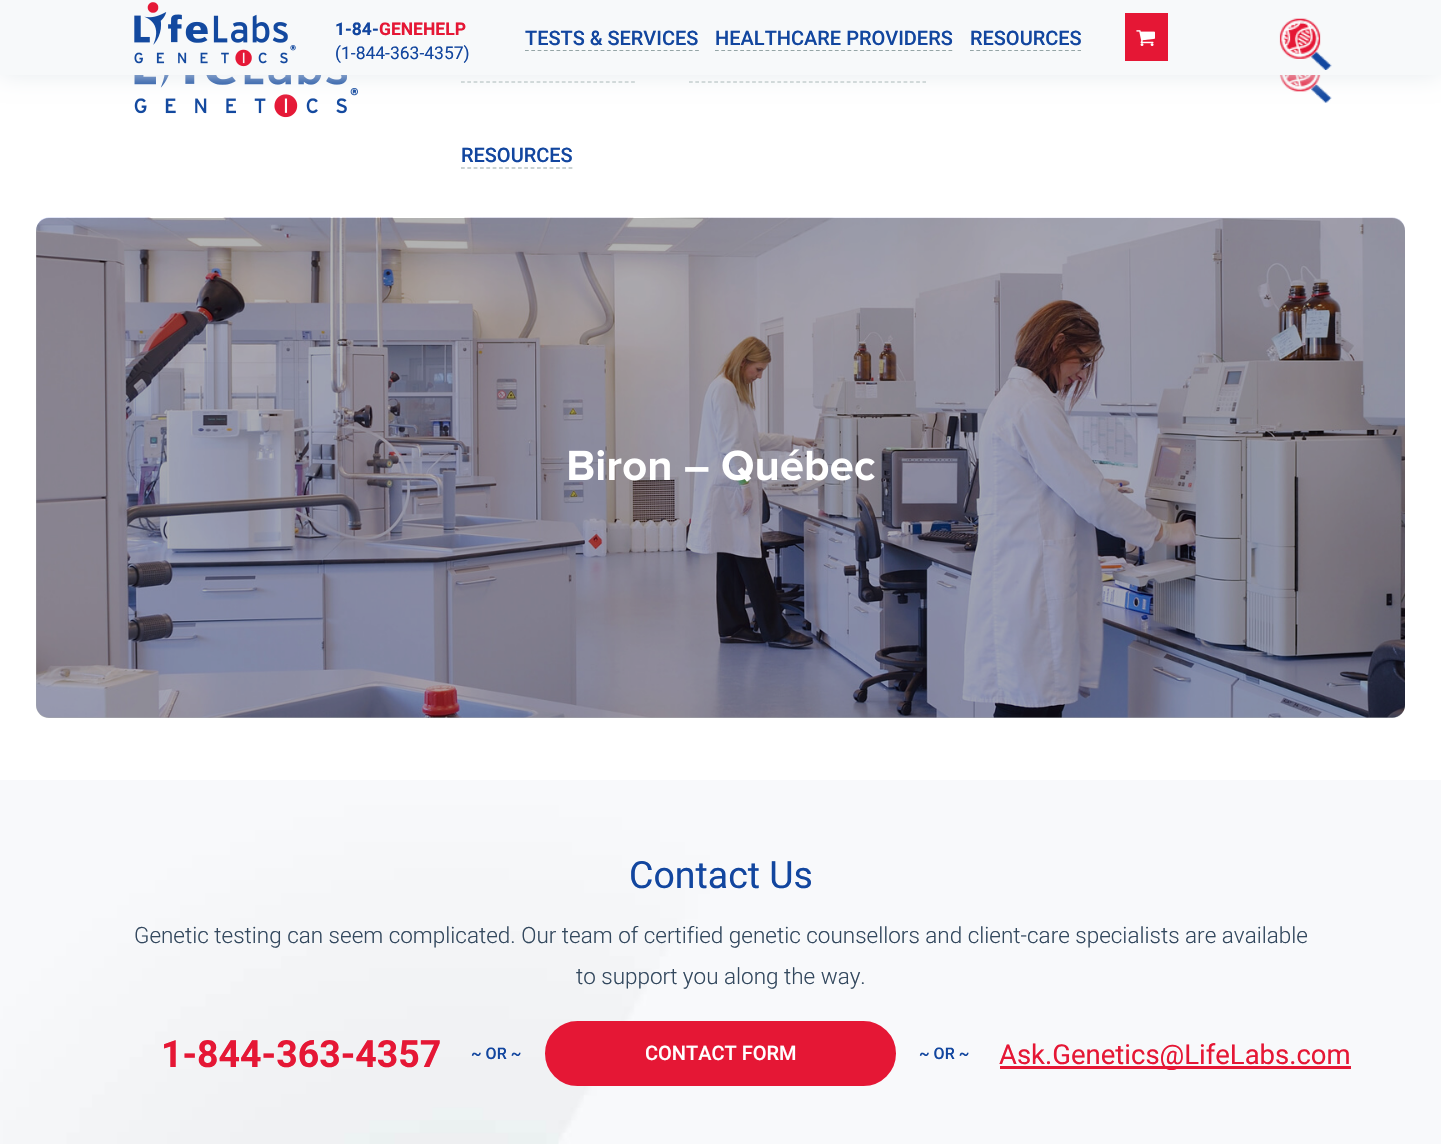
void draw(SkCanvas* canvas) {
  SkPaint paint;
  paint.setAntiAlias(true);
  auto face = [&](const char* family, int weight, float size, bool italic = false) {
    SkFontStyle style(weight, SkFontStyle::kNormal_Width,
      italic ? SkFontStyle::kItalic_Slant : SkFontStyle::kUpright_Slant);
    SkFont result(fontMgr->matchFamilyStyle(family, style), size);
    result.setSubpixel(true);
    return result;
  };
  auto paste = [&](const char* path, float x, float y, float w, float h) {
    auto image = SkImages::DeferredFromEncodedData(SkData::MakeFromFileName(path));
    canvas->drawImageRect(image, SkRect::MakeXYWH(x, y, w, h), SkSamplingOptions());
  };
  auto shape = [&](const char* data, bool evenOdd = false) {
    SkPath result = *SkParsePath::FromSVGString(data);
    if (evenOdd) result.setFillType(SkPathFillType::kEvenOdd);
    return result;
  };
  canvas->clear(0xffffffff);
  paste("img/4.png", 134, 75, 224, 43);
  paste("img/5.png", 1279, 75, 53, 28);
  paint.setStroke(true);
  paint.setStrokeWidth(1.2f);
  paint.setColor(0xff95a5a6);
  paint.setPathEffect(SkDashPathEffect::Make({{3.75f, 2.55f}}, 0));
  canvas->drawPath(shape("M461 82H635"), paint);
  paint.setPathEffect(nullptr);
  paint.setPathEffect(SkDashPathEffect::Make({{3.75f, 2.56f}}, 0));
  canvas->drawPath(shape("M689 82H926"), paint);
  paint.setPathEffect(nullptr);
  paint.setStroke(false);
  paint.setColor(0xffe7ecef);
  paint.setMaskFilter(SkMaskFilter::MakeBlur(kNormal_SkBlurStyle, 12.5f));
  canvas->drawRect(SkRect::MakeXYWH(0, 0, 1441, 75), paint);
  paint.setMaskFilter(nullptr);
  paint.setColor(0xfff7f9fa);
  canvas->drawRect(SkRect::MakeXYWH(0, 0, 1441, 75), paint);
  paste("img/1.png", 134, 2, 162, 65);
  paint.setStroke(true);
  paint.setColor(0xff95a5a6);
  paint.setPathEffect(SkDashPathEffect::Make({{3.75f, 2.55f}}, 0));
  canvas->drawPath(shape("M525 50.5H699"), paint);
  paint.setPathEffect(nullptr);
  paint.setPathEffect(SkDashPathEffect::Make({{3.75f, 2.56f}}, 0));
  canvas->drawPath(shape("M715 50.5H952.5"), paint);
  paint.setPathEffect(nullptr);
  paint.setPathEffect(SkDashPathEffect::Make({{3.75f, 2.58f}}, 0));
  canvas->drawPath(shape("M970 50.5H1081"), paint);
  paint.setPathEffect(nullptr);
  paint.setStroke(false);
  paint.setColor(0xffe51735);
  canvas->drawRect(SkRect::MakeXYWH(1125, 13, 43, 48), paint);
  paste("img/2.png", 1136, 30, 19, 16);
  paste("img/3.png", 1279, 18, 53, 52);
  paint.setStroke(true);
  paint.setColor(0xff95a5a6);
  paint.setPathEffect(SkDashPathEffect::Make({{3.75f, 2.58f}}, 0));
  canvas->drawPath(shape("M461 168H572.5"), paint);
  paint.setPathEffect(nullptr);
  paint.setStroke(false);
  paint.setColor(0xffeff3f5);
  canvas->drawRoundRect(SkRect::MakeXYWH(36, 218, 1369, 500), 13, 13, paint);
  paste("img/6.png", 36, 217, 1369, 501);
  paint.setColor(0x4d000000);
  canvas->drawRoundRect(SkRect::MakeXYWH(36, 218, 1369, 500), 13, 13, paint);
  paste("img/7.png", 569, 449, 306, 33);
  paste("img/8.png", 0, 780, 1441, 364);
  paint.setColor(0xffe51735);
  canvas->drawRoundRect(SkRect::MakeXYWH(546.5f, 1022.5f, 348, 62), 31, 31, paint);
  paint.setStroke(true);
  paint.setStrokeWidth(3);
  canvas->drawRoundRect(SkRect::MakeXYWH(546.5f, 1022.5f, 348, 62), 31, 31, paint);
  paint.setStroke(false);
  canvas->drawRect(SkRect::MakeXYWH(1000, 1066, 351, 3), paint);
  auto f0 = face("Roboto", 700, 17.5f);
  paint.setColor(0xff12469f);
  canvas->drawString("1-84-", 335, 35, f0, paint);
  paint.setColor(0xffe51735);
  canvas->drawString("GENEHELP", 379, 35, f0, paint);
  auto f1 = face("Roboto", 400, 17.5f);
  paint.setColor(0xff12469f);
  canvas->drawString("(1-844-363-4357)", 335, 59, f1, paint);
  auto f2 = face("Roboto", 500, 20);
  {
    const struct { const char* s; float x, y; } items[] = {
      {"TESTS & SERVICES", 525, 45},
      {"HEALTHCARE PROVIDERS", 715, 45},
      {"RESOURCES", 970, 45},
      {"RESOURCES", 461, 162},
    };
    for (auto [s, x, y] : items) {
      canvas->drawString(s, x, y, f2, paint);
    }
  }
  auto f3 = face("Roboto", 400, 37.5f);
  canvas->drawString("Contact Us", 629, 888, f3, paint);
  auto f4 = face("Roboto", 300, 22.5f);
  paint.setColor(0xff33485e);
  canvas->drawString("Genetic testing can seem complicated. Our team of certified genetic counsellors and client-care specialists are available", 134, 943, f4, paint);
  canvas->drawString("to support you along the way.", 576, 984, f4, paint);
  auto f5 = face("Roboto", 700, 37.5f);
  paint.setColor(0xffe51735);
  canvas->drawString("1-844-363-4357", 161, 1067, f5, paint);
  auto f6 = face("Roboto", 500, 16);
  paint.setColor(0xff12469f);
  canvas->drawString("~ OR ~", 471, 1059, f6, paint);
  paint.setColor(0xffffffff);
  canvas->drawString("CONTACT FORM", 645, 1060, f2, paint);
  paint.setColor(0xff12469f);
  canvas->drawString("~ OR ~", 919, 1059, f6, paint);
  auto f7 = face("Roboto", 400, 27.5f);
  paint.setColor(0xffe51735);
  canvas->drawString("Ask.Genetics@LifeLabs.com", 999, 1064, f7, paint);
}
